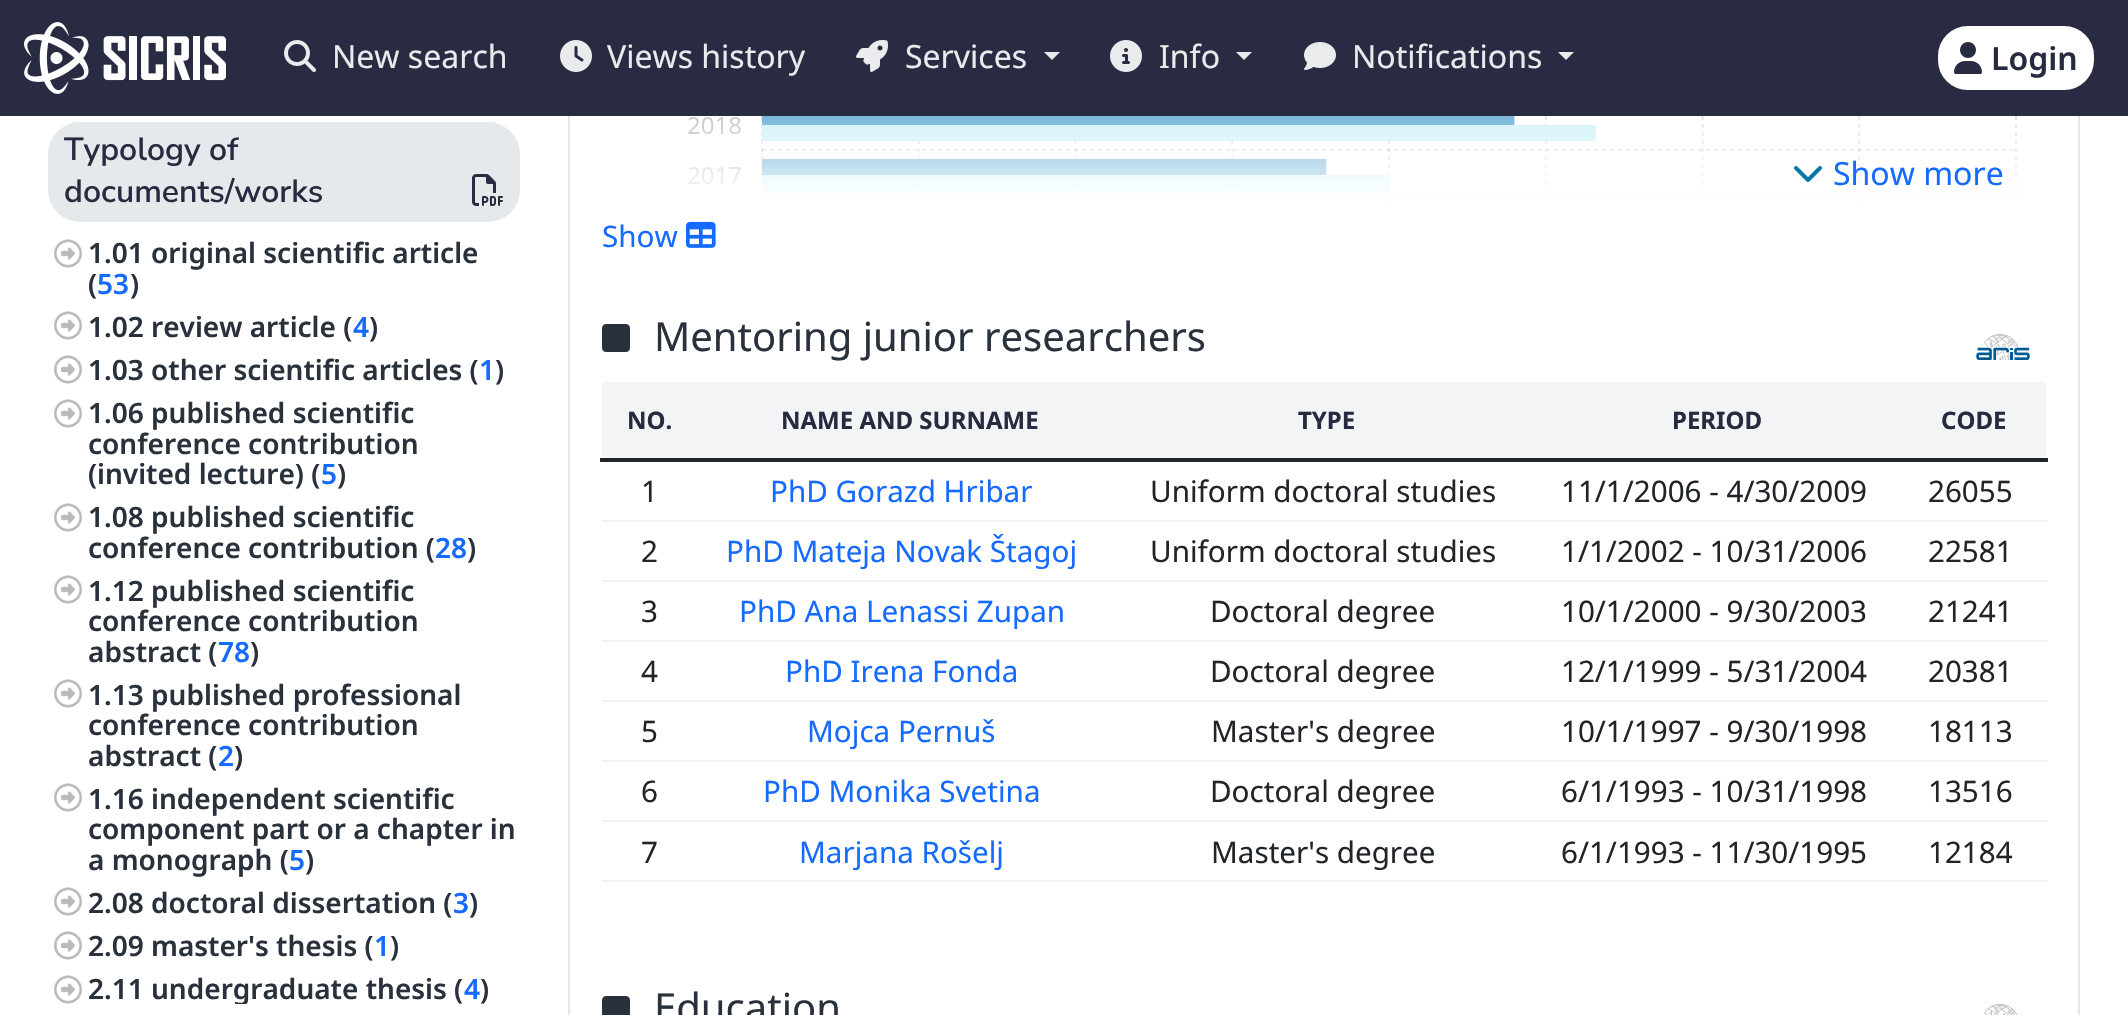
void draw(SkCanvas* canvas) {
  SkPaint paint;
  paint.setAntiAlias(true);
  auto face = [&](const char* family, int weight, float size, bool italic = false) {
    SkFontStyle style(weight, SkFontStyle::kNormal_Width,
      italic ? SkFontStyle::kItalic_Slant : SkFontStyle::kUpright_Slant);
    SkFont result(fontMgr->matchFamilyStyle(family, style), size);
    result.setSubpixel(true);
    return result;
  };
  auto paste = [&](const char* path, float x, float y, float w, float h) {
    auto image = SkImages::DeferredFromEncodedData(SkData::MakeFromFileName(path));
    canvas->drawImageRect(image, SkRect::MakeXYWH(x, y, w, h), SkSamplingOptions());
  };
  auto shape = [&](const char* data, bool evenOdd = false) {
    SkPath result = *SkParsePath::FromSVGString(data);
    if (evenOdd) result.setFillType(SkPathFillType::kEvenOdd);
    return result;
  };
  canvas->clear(0xffffffff);
  paint.setStroke(true);
  paint.setStrokeWidth(2);
  paint.setColor(0xffe5e6e9);
  canvas->drawRect(SkRect::MakeXYWH(569, -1, 1510, 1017), paint);
  paint.setStroke(false);
  paint.setColor(0xff282b42);
  canvas->drawRect(SkRect::MakeXYWH(0, 0, 2128, 116), paint);
  paste("img/1.png", 24, 22, 202, 72);
  paste("img/2.png", 284, 40, 32, 32);
  paste("img/3.png", 560, 40, 32, 32);
  paste("img/4.png", 856, 40, 32, 32);
  paint.setColor(0xffeaeaec);
  canvas->drawPath(shape("M1044 52H1060L1052 60Z"), paint);
  paste("img/5.png", 1110, 40, 32, 32);
  canvas->drawPath(shape("M1236 52H1252L1244 60Z"), paint);
  paste("img/6.png", 1304, 42, 32, 28);
  canvas->drawPath(shape("M1558 52H1574L1566 60Z"), paint);
  paint.setColor(0xffffffff);
  canvas->drawRoundRect(SkRect::MakeXYWH(1937, 25, 158, 66), 31, 31, paint);
  paint.setStroke(true);
  paint.setColor(0xff282b42);
  canvas->drawRoundRect(SkRect::MakeXYWH(1937, 25, 158, 66), 31, 31, paint);
  paste("img/7.png", 1954, 42, 28, 32);
  paint.setStroke(false);
  paint.setColor(0xffe6e9ec);
  canvas->drawRoundRect(SkRect::MakeXYWH(48, 122, 472, 100), 32, 32, paint);
  paste("img/8.png", 472, 174, 31, 32);
  paste("img/9.png", 54, 239, 28, 29);
  paste("img/9.png", 54, 311, 28, 29);
  paste("img/9.png", 54, 355, 28, 29);
  paste("img/9.png", 54, 399, 28, 29);
  paste("img/9.png", 54, 503, 28, 29);
  paste("img/9.png", 54, 575, 28, 29);
  paste("img/9.png", 54, 679, 28, 29);
  paste("img/9.png", 54, 783, 28, 29);
  paste("img/9.png", 54, 887, 28, 29);
  paste("img/9.png", 54, 931, 28, 29);
  paste("img/9.png", 54, 975, 28, 29);
  paste("img/10.png", 688, 116, 1329, 92);
  {
    const SkColor colors[] = {0x00ffffff, 0xffffffff};
    const float stops[] = {0.7f, 1};
    const SkPoint ends[] = {{1324, -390}, {1324, 210}};
    paint.setShader(SkGradientShader::MakeLinear(ends, colors, stops, 2, SkTileMode::kClamp));
    paint.setAlpha(255);
  }
  canvas->drawRect(SkRect::MakeXYWH(688, 116, 1329, 92), paint);
  paste("img/11.png", 1794, 166, 28, 16);
  paste("img/12.png", 686, 221, 30, 27);
  paste("img/13.png", 602, 324, 28, 28);
  paste("img/14.png", 1976, 334, 54, 26);
  paint.setShader(nullptr);
  {
    const struct { float x, y, w, h; SkColor color; } items[] = {
      {602, 382, 1444, 76, 0xfff3f4f6},
      {600, 458, 1448, 4, 0xff212529},
      {602, 520, 1446, 2, 0xfff2f2f2},
      {602, 580, 1446, 2, 0xfff2f2f2},
      {602, 640, 1446, 2, 0xfff2f2f2},
      {602, 700, 1446, 2, 0xfff2f2f2},
      {602, 760, 1446, 2, 0xfff2f2f2},
      {602, 820, 1446, 2, 0xfff2f2f2},
      {602, 880, 1446, 2, 0xfff2f2f2},
    };
    for (auto [x, y, w, h, color] : items) {
      paint.setColor(color);
      canvas->drawRect(SkRect::MakeXYWH(x, y, w, h), paint);
    }
  }
  paste("img/15.png", 602, 996, 28, 19);
  paste("img/16.png", 1984, 1004, 34, 11);
  auto f0 = face("Noto Sans", 400, 32);
  paint.setColor(0xffeaeaec);
  {
    const struct { const char* s; float x, y; } items[] = {
      {"New search", 332, 68},
      {"Views history", 607, 68},
      {"Services", 905, 68},
      {"Info", 1159, 68},
      {"Notifications", 1352, 68},
    };
    for (auto [s, x, y] : items) {
      canvas->drawString(s, x, y, f0, paint);
    }
  }
  auto f1 = face("Noto Sans", 600, 32);
  paint.setColor(0xff262b40);
  canvas->drawString("Login", 1991, 70, f1, paint);
  auto f2 = face("Nunito Sans", 600, 32);
  canvas->drawString("Typology of", 64, 160, f2, paint);
  canvas->drawString("documents/works", 64, 202, f2, paint);
  auto f3 = face("Noto Sans", 600, 28);
  paint.setColor(0xff29313d);
  canvas->drawString("1.01 original scientific article", 88, 263, f3, paint);
  canvas->drawString("(", 88, 294, f3, paint);
  paint.setColor(0xff156bff);
  canvas->drawString("53", 97, 294, f3, paint);
  paint.setColor(0xff29313d);
  canvas->drawString(")", 130, 294, f3, paint);
  canvas->drawString("1.02 review article (", 88, 337, f3, paint);
  paint.setColor(0xff156bff);
  canvas->drawString("4", 353, 337, f3, paint);
  paint.setColor(0xff29313d);
  canvas->drawString(")", 369, 337, f3, paint);
  canvas->drawString("1.03 other scientific articles (", 88, 380, f3, paint);
  paint.setColor(0xff156bff);
  canvas->drawString("1", 479, 380, f3, paint);
  paint.setColor(0xff29313d);
  {
    const struct { const char* s; float x, y; } items[] = {
      {")", 495, 380},
      {"1.06 published scientific", 88, 423},
      {"conference contribution", 88, 454},
      {"(invited lecture) (", 88, 484},
    };
    for (auto [s, x, y] : items) {
      canvas->drawString(s, x, y, f3, paint);
    }
  }
  paint.setColor(0xff156bff);
  canvas->drawString("5", 321, 484, f3, paint);
  paint.setColor(0xff29313d);
  {
    const struct { const char* s; float x, y; } items[] = {
      {")", 337, 484},
      {"1.08 published scientific", 88, 527},
      {"conference contribution (", 88, 558},
    };
    for (auto [s, x, y] : items) {
      canvas->drawString(s, x, y, f3, paint);
    }
  }
  paint.setColor(0xff156bff);
  canvas->drawString("28", 435, 558, f3, paint);
  paint.setColor(0xff29313d);
  {
    const struct { const char* s; float x, y; } items[] = {
      {")", 467, 558},
      {"1.12 published scientific", 88, 601},
      {"conference contribution", 88, 631},
      {"abstract (", 88, 662},
    };
    for (auto [s, x, y] : items) {
      canvas->drawString(s, x, y, f3, paint);
    }
  }
  paint.setColor(0xff156bff);
  canvas->drawString("78", 218, 662, f3, paint);
  paint.setColor(0xff29313d);
  {
    const struct { const char* s; float x, y; } items[] = {
      {")", 250, 662},
      {"1.13 published professional", 88, 705},
      {"conference contribution", 88, 735},
      {"abstract (", 88, 766},
    };
    for (auto [s, x, y] : items) {
      canvas->drawString(s, x, y, f3, paint);
    }
  }
  paint.setColor(0xff156bff);
  canvas->drawString("2", 218, 766, f3, paint);
  paint.setColor(0xff29313d);
  {
    const struct { const char* s; float x, y; } items[] = {
      {")", 234, 766},
      {"1.16 independent scientific", 88, 809},
      {"component part or a chapter in", 88, 839},
      {"a monograph (", 88, 870},
    };
    for (auto [s, x, y] : items) {
      canvas->drawString(s, x, y, f3, paint);
    }
  }
  paint.setColor(0xff156bff);
  canvas->drawString("5", 289, 870, f3, paint);
  paint.setColor(0xff29313d);
  canvas->drawString(")", 305, 870, f3, paint);
  canvas->drawString("2.08 doctoral dissertation (", 88, 913, f3, paint);
  paint.setColor(0xff156bff);
  canvas->drawString("3", 453, 913, f3, paint);
  paint.setColor(0xff29313d);
  canvas->drawString(")", 469, 913, f3, paint);
  canvas->drawString("2.09 master's thesis (", 88, 956, f3, paint);
  paint.setColor(0xff156bff);
  canvas->drawString("1", 374, 956, f3, paint);
  paint.setColor(0xff29313d);
  canvas->drawString(")", 390, 956, f3, paint);
  canvas->drawString("2.11", 88, 999, f3, paint);
  canvas->save();
  canvas->clipRect(SkRect::MakeXYWH(48, 122, 472, 882));
  canvas->drawString("undergraduate thesis (", 151, 999, f3, paint);
  canvas->restore();
  paint.setColor(0xff156bff);
  canvas->drawString("4", 464, 999, f3, paint);
  paint.setColor(0xff29313d);
  canvas->drawString(")", 480, 999, f3, paint);
  paint.setColor(0xff156bff);
  canvas->drawString("Show more", 1833, 185, f0, paint);
  auto f4 = face("Noto Sans", 400, 29.6f);
  canvas->drawString("Show", 602, 247, f4, paint);
  auto f5 = face("Noto Sans", 400, 40);
  paint.setColor(0xff29313d);
  canvas->drawString("Mentoring junior researchers", 654, 351, f5, paint);
  auto f6 = face("Noto Sans", 700, 24);
  paint.setColor(0xff262b40);
  {
    const struct { const char* s; float x, y; } items[] = {
      {"NO.", 627, 429},
      {"NAME AND SURNAME", 781, 429},
      {"TYPE", 1298, 429},
      {"PERIOD", 1672, 429},
      {"CODE", 1941, 429},
    };
    for (auto [s, x, y] : items) {
      canvas->drawString(s, x, y, f6, paint);
    }
  }
  paint.setColor(0xff212529);
  canvas->drawString("1", 641, 502, f4, paint);
  paint.setColor(0xff156bff);
  canvas->drawString("PhD Gorazd Hribar", 770, 502, f4, paint);
  paint.setColor(0xff212529);
  {
    const struct { const char* s; float x, y; } items[] = {
      {"Uniform doctoral studies", 1150, 502},
      {"11/1/2006 - 4/30/2009", 1561, 502},
      {"26055", 1928, 502},
      {"2", 641, 562},
    };
    for (auto [s, x, y] : items) {
      canvas->drawString(s, x, y, f4, paint);
    }
  }
  paint.setColor(0xff156bff);
  canvas->drawString("PhD Mateja Novak Štagoj", 726, 562, f4, paint);
  paint.setColor(0xff212529);
  {
    const struct { const char* s; float x, y; } items[] = {
      {"Uniform doctoral studies", 1150, 562},
      {"1/1/2002 - 10/31/2006", 1561, 562},
      {"22581", 1928, 562},
      {"3", 641, 622},
    };
    for (auto [s, x, y] : items) {
      canvas->drawString(s, x, y, f4, paint);
    }
  }
  paint.setColor(0xff156bff);
  canvas->drawString("PhD Ana Lenassi Zupan", 739, 622, f4, paint);
  paint.setColor(0xff212529);
  {
    const struct { const char* s; float x, y; } items[] = {
      {"Doctoral degree", 1210, 622},
      {"10/1/2000 - 9/30/2003", 1561, 622},
      {"21241", 1928, 622},
      {"4", 641, 682},
    };
    for (auto [s, x, y] : items) {
      canvas->drawString(s, x, y, f4, paint);
    }
  }
  paint.setColor(0xff156bff);
  canvas->drawString("PhD Irena Fonda", 785, 682, f4, paint);
  paint.setColor(0xff212529);
  {
    const struct { const char* s; float x, y; } items[] = {
      {"Doctoral degree", 1210, 682},
      {"12/1/1999 - 5/31/2004", 1561, 682},
      {"20381", 1928, 682},
      {"5", 641, 742},
    };
    for (auto [s, x, y] : items) {
      canvas->drawString(s, x, y, f4, paint);
    }
  }
  paint.setColor(0xff156bff);
  canvas->drawString("Mojca Pernuš", 807, 742, f4, paint);
  paint.setColor(0xff212529);
  {
    const struct { const char* s; float x, y; } items[] = {
      {"Master's degree", 1211, 742},
      {"10/1/1997 - 9/30/1998", 1561, 742},
      {"18113", 1928, 742},
      {"6", 641, 802},
    };
    for (auto [s, x, y] : items) {
      canvas->drawString(s, x, y, f4, paint);
    }
  }
  paint.setColor(0xff156bff);
  canvas->drawString("PhD Monika Svetina", 763, 802, f4, paint);
  paint.setColor(0xff212529);
  {
    const struct { const char* s; float x, y; } items[] = {
      {"Doctoral degree", 1210, 802},
      {"6/1/1993 - 10/31/1998", 1561, 802},
      {"13516", 1928, 802},
      {"7", 641, 863},
    };
    for (auto [s, x, y] : items) {
      canvas->drawString(s, x, y, f4, paint);
    }
  }
  paint.setColor(0xff156bff);
  canvas->drawString("Marjana Rošelj", 799, 863, f4, paint);
  paint.setColor(0xff212529);
  {
    const struct { const char* s; float x, y; } items[] = {
      {"Master's degree", 1211, 863},
      {"6/1/1993 - 11/30/1995", 1561, 863},
      {"12184", 1928, 863},
    };
    for (auto [s, x, y] : items) {
      canvas->drawString(s, x, y, f4, paint);
    }
  }
  paint.setColor(0xff29313d);
  canvas->drawString("Education", 654, 1022, f5, paint);
}
